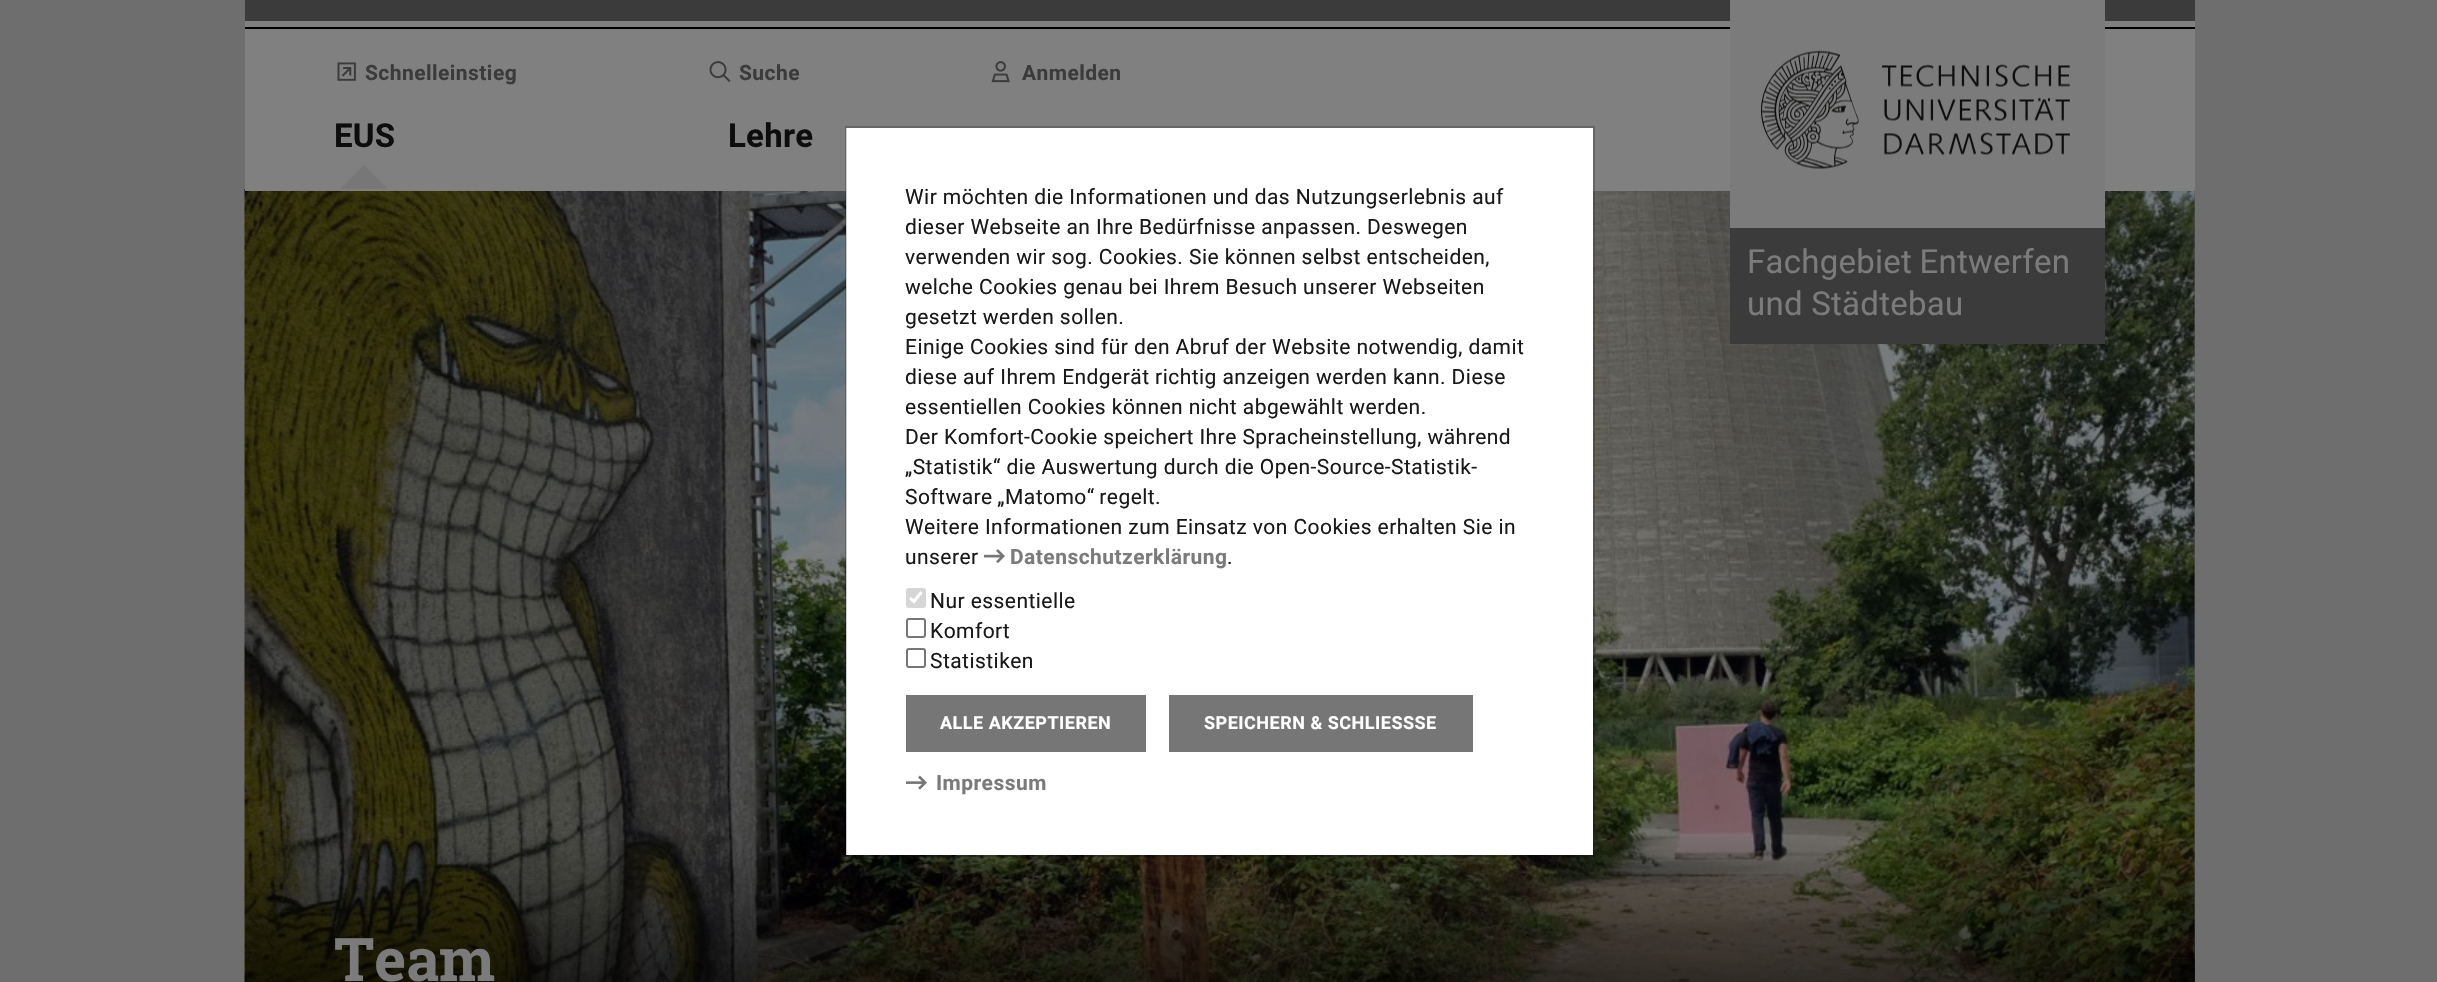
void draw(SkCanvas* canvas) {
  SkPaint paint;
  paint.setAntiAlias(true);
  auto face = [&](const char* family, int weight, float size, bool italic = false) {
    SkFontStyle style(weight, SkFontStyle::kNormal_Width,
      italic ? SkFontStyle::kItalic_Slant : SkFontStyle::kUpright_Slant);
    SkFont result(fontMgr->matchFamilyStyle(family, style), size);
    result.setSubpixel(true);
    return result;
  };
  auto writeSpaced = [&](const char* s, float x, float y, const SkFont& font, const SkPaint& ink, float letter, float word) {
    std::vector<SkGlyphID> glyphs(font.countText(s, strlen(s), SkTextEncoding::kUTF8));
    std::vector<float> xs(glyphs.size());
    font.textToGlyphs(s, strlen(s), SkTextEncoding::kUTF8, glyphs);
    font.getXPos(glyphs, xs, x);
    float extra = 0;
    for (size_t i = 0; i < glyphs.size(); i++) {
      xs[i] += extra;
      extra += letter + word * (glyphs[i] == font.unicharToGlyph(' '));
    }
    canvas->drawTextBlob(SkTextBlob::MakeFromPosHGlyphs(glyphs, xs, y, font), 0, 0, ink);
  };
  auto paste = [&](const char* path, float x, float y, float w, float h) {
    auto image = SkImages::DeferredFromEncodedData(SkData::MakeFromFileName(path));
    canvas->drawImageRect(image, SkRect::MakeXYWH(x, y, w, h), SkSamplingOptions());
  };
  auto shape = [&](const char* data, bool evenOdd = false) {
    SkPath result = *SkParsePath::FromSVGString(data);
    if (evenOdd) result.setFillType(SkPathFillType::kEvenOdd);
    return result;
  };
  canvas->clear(0xff6e6e6e);
  {
    const struct { float x, y, w, h; SkColor color; } items[] = {
      {245, 21, 1950, 2, 0xff808080},
      {245, 0, 1950, 21, 0xff3b3b3b},
      {2194, 191, 1, 791, 0xff535353},
    };
    for (auto [x, y, w, h, color] : items) {
      paint.setColor(color);
      canvas->drawRect(SkRect::MakeXYWH(x, y, w, h), paint);
    }
  }
  paste("img/5.png", 244, 189, 1951, 793);
  paint.setColor(0xff808080);
  canvas->drawRect(SkRect::MakeXYWH(245, 23, 1950, 168), paint);
  paint.setColor(0xff000000);
  canvas->drawRect(SkRect::MakeXYWH(245, 27, 1950, 2), paint);
  paste("img/1.png", 337, 62, 19, 19);
  paste("img/2.png", 709, 61, 22, 21);
  paste("img/3.png", 991, 61, 19, 22);
  paint.setColor(0xff777777);
  canvas->drawPath(shape("M388 189H340L364 165Z"), paint);
  paint.setColor(0xff7b7b7b);
  canvas->drawRect(SkRect::MakeXYWH(1730, 0, 375, 228), paint);
  paste("img/4.png", 1761, 50, 309, 119);
  paint.setColor(0xff3b3b3b);
  canvas->drawRect(SkRect::MakeXYWH(1730, 228, 375, 116), paint);
  {
    const SkColor colors[] = {0xcc000000, 0x00000000};
    const float stops[] = {0, 0.25f};
    const SkPoint ends[] = {{1220, 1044}, {1220, 189}};
    paint.setShader(SkGradientShader::MakeLinear(ends, colors, stops, 2, SkTileMode::kClamp));
    paint.setAlpha(255);
  }
  canvas->drawRect(SkRect::MakeXYWH(245, 836, 1950, 146), paint);
  paint.setShader(nullptr);
  paint.setColor(0x99000000);
  canvas->drawRect(SkRect::MakeXYWH(2171, 959, 24, 23), paint);
  paint.setColor(0xffffffff);
  canvas->drawRect(SkRect::MakeXYWH(846, 128, 747, 727), paint);
  paint.setStroke(true);
  paint.setStrokeWidth(2);
  paint.setColor(0x33000000);
  canvas->drawRect(SkRect::MakeXYWH(846, 127, 748, 729), paint);
  paste("img/6.png", 984, 549, 21, 15);
  paint.setStroke(false);
  paint.setColor(0xffd6d6d6);
  canvas->drawRoundRect(SkRect::MakeXYWH(906, 588, 20, 20), 3, 3, paint);
  paint.setStroke(true);
  paint.setStrokeWidth(3.1f);
  paint.setColor(0xffffffff);
  canvas->drawPath(shape("M910 598L914 601.5L921.5 592"), paint);
  paint.setStrokeWidth(2);
  paint.setColor(0xff767676);
  canvas->drawRoundRect(SkRect::MakeXYWH(907, 619, 18, 18), 2, 2, paint);
  canvas->drawRoundRect(SkRect::MakeXYWH(907, 649, 18, 18), 2, 2, paint);
  paint.setStroke(false);
  canvas->drawRect(SkRect::MakeXYWH(906, 695, 240, 57), paint);
  canvas->drawRect(SkRect::MakeXYWH(1169, 695, 304, 57), paint);
  paste("img/7.png", 906, 775, 21, 15);
  auto f0 = face("Roboto", 700, 21);
  paint.setColor(0xff3b3b3b);
  {
    const struct { const char* s; float x, y; } items[] = {
      {"Schnelleinstieg", 365, 80},
      {"Suche", 739, 80},
      {"Anmelden", 1022, 80},
    };
    for (auto [s, x, y] : items) {
      writeSpaced(s, x, y, f0, paint, 0.45f, 0);
    }
  }
  auto f1 = face("Roboto", 700, 33);
  paint.setColor(0xff0d0d0d);
  writeSpaced("EUS", 334, 147, f1, paint, 0.25f, 0);
  writeSpaced("Lehre", 728, 147, f1, paint, 0.25f, 0);
  auto f2 = face("Roboto", 400, 33);
  paint.setColor(0xff7b7b7b);
  writeSpaced("Fachgebiet Entwerfen", 1747, 273, f2, paint, 0.25f, -1);
  writeSpaced("und Städtebau", 1747, 315, f2, paint, 0.25f, 0);
  auto f3 = face("Roboto Slab", 700, 60);
  canvas->drawString("Team", 334, 981, f3, paint);
  auto f4 = face("Roboto", 400, 21);
  paint.setColor(0xff1a1919);
  {
    const struct { const char* s; float x, y; } items[] = {
      {"Wir möchten die Informationen und das Nutzungserlebnis auf", 905, 204},
      {"dieser Webseite an Ihre Bedürfnisse anpassen. Deswegen", 905, 234},
      {"verwenden wir sog. Cookies. Sie können selbst entscheiden,", 905, 264},
      {"welche Cookies genau bei Ihrem Besuch unserer Webseiten", 905, 294},
      {"gesetzt werden sollen.", 905, 324},
      {"Einige Cookies sind für den Abruf der Website notwendig, damit", 905, 354},
      {"diese auf Ihrem Endgerät richtig anzeigen werden kann. Diese", 905, 384},
      {"essentiellen Cookies können nicht abgewählt werden.", 905, 414},
      {"Der Komfort-Cookie speichert Ihre Spracheinstellung, während", 905, 444},
      {"„Statistik“ die Auswertung durch die Open-Source-Statistik-", 905, 474},
    };
    for (auto [s, x, y] : items) {
      writeSpaced(s, x, y, f4, paint, 0.45f, 0);
    }
  }
  writeSpaced("Software „Matomo“ regelt.", 905, 504, f4, paint, 0.45f, -1);
  writeSpaced("Weitere Informationen zum Einsatz von Cookies erhalten Sie in", 905, 534, f4, paint, 0.45f, 0);
  writeSpaced("unserer", 905, 564, f4, paint, 0.45f, 0);
  paint.setColor(0xff7b7b7b);
  writeSpaced("Datenschutzerklärung", 1010, 564, f0, paint, 0.45f, 0);
  paint.setColor(0xff1a1919);
  {
    const struct { const char* s; float x, y; } items[] = {
      {".", 1227, 564},
      {"Nur essentielle", 930, 608},
      {"Komfort", 930, 638},
      {"Statistiken", 930, 668},
    };
    for (auto [s, x, y] : items) {
      writeSpaced(s, x, y, f4, paint, 0.45f, 0);
    }
  }
  auto f5 = face("Roboto", 700, 18);
  paint.setColor(0xffffffff);
  writeSpaced("ALLE AKZEPTIEREN", 940, 729, f5, paint, 0.5f, 0);
  writeSpaced("SPEICHERN & SCHLIESSSE", 1204, 729, f5, paint, 0.5f, 0);
  paint.setColor(0xff7b7b7b);
  writeSpaced("Impressum", 936, 790, f0, paint, 0.45f, 0);
}
